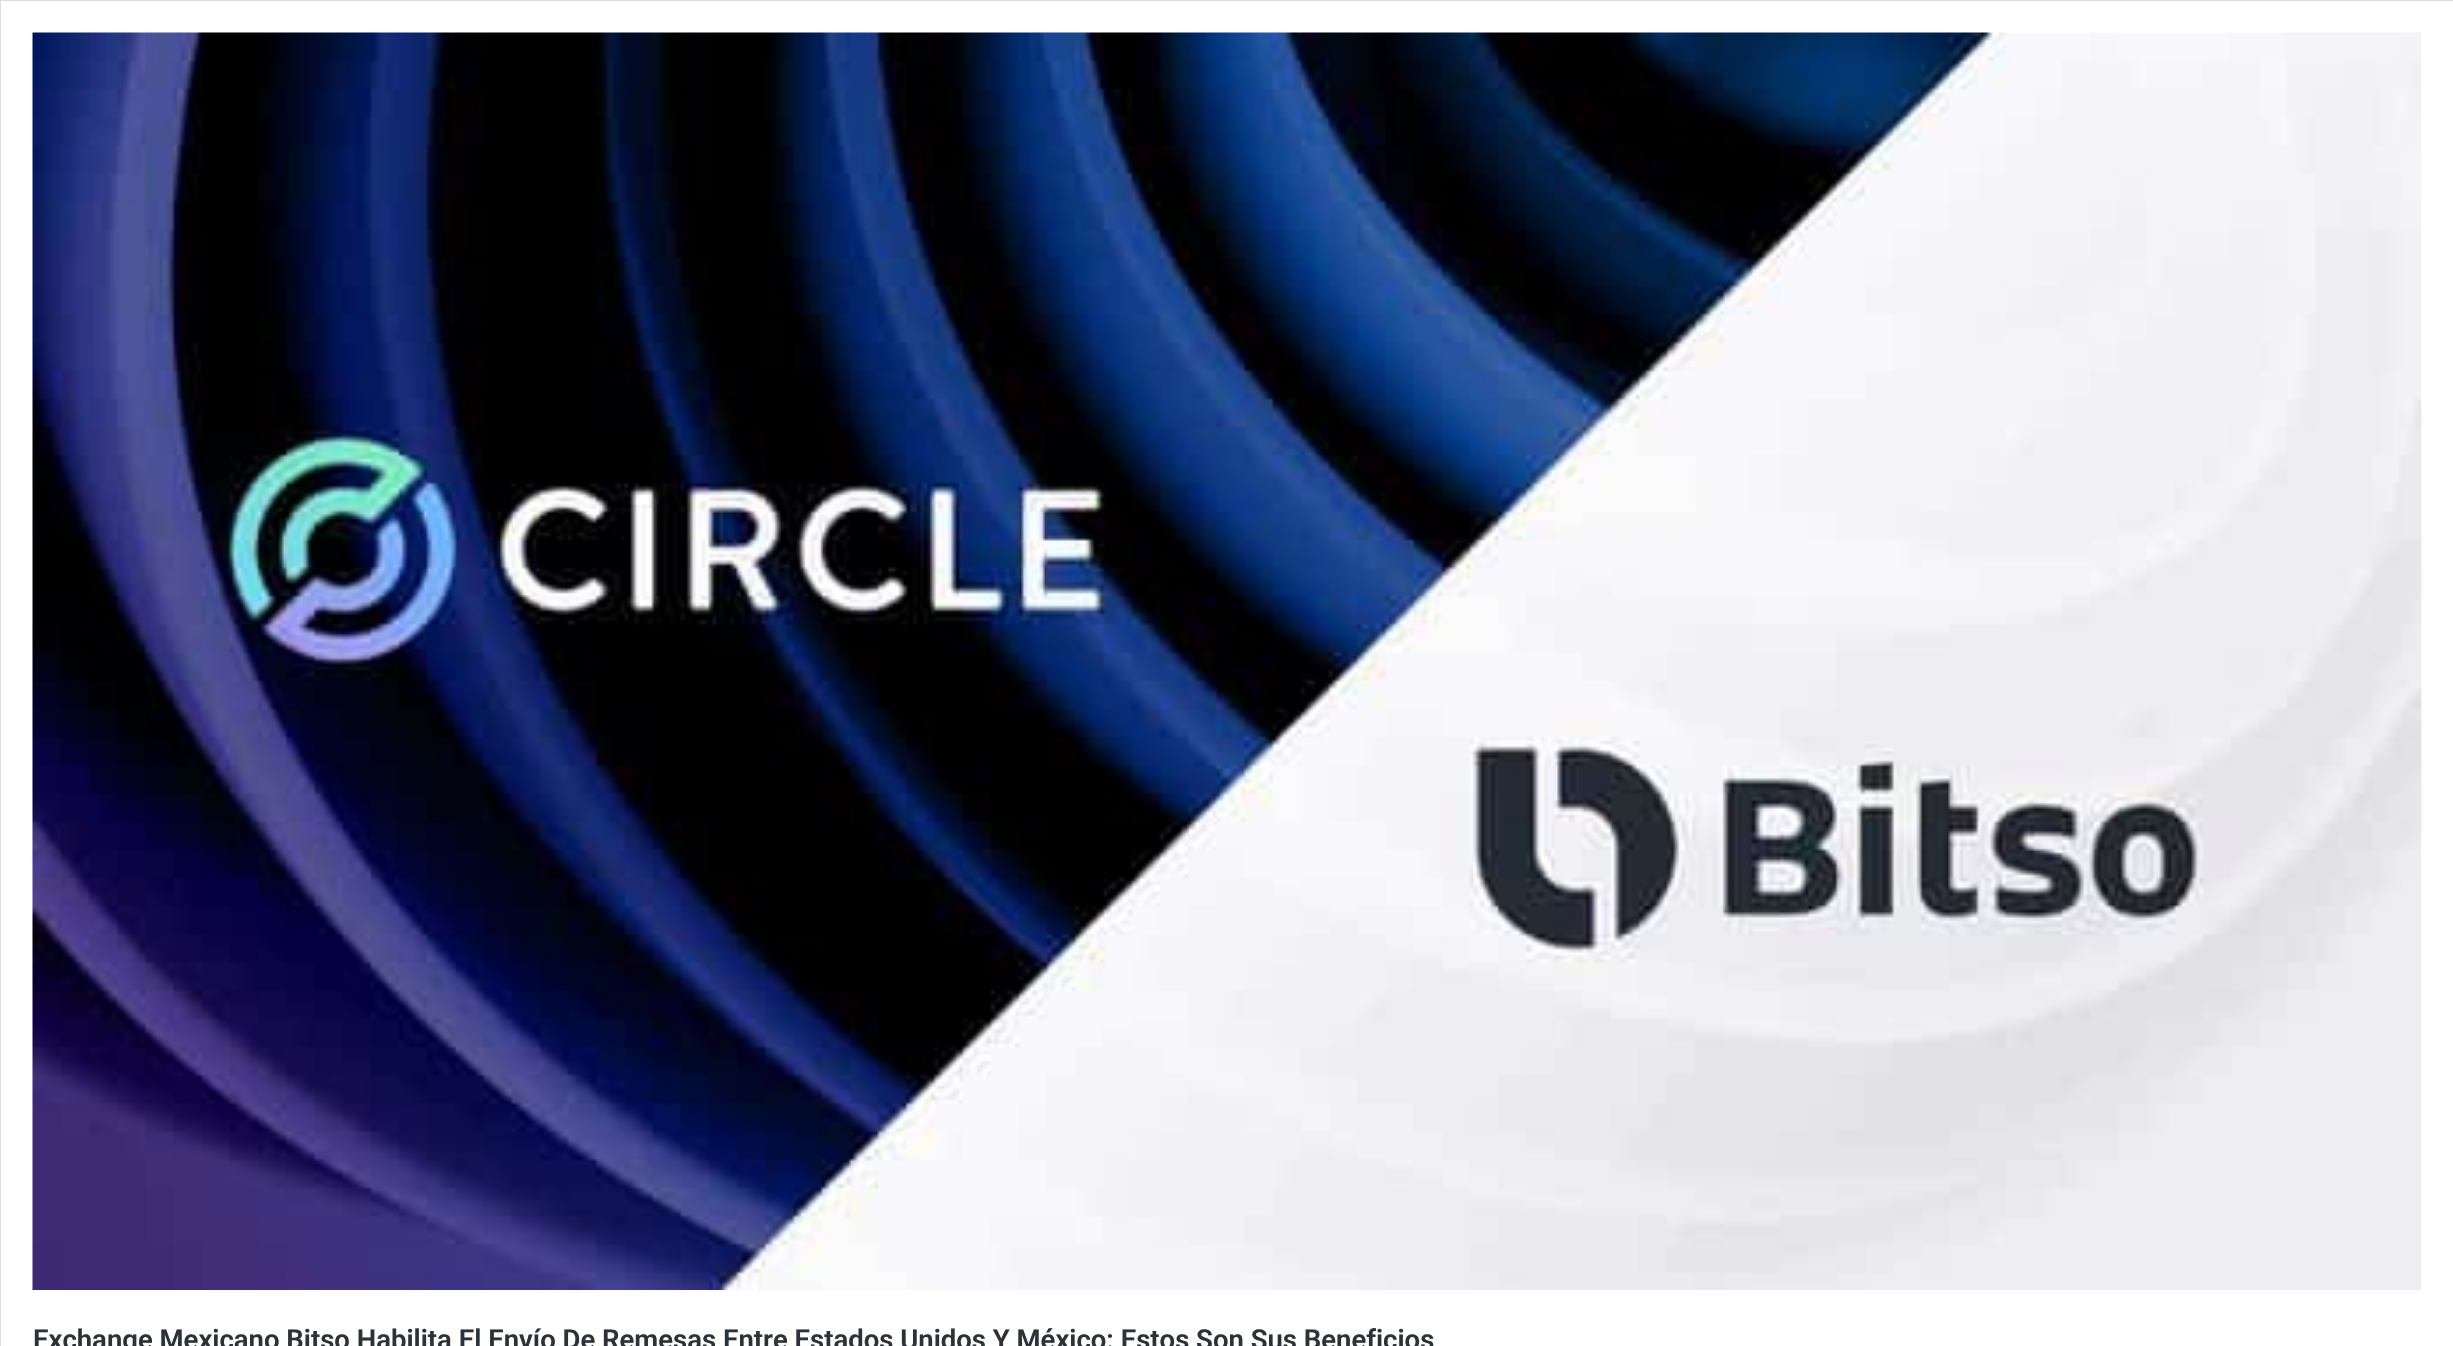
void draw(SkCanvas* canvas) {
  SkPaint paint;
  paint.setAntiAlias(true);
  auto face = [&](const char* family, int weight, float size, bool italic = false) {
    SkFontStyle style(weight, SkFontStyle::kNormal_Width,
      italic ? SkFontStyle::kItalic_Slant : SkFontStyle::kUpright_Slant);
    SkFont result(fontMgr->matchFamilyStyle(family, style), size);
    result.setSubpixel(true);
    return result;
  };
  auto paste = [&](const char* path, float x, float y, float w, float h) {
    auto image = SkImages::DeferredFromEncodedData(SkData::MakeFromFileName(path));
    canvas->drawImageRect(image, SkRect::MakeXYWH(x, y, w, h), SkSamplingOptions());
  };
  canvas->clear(0xffffffff);
  paint.setStroke(true);
  paint.setStrokeWidth(1);
  paint.setColor(0xffdcdcde);
  canvas->drawRect(SkRect::MakeXYWH(0.5f, 0.5f, 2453, 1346), paint);
  paste("img/1.png", 32, 32, 2390, 1258);
  auto f0 = face("Roboto", 600, 27.5f);
  paint.setStroke(false);
  paint.setColor(0xff2c3338);
  canvas->drawString("Exchange Mexicano Bitso Habilita El Envío De Remesas Entre Estados Unidos Y México: Estos Son Sus Beneficios", 33, 1349, f0, paint);
}
